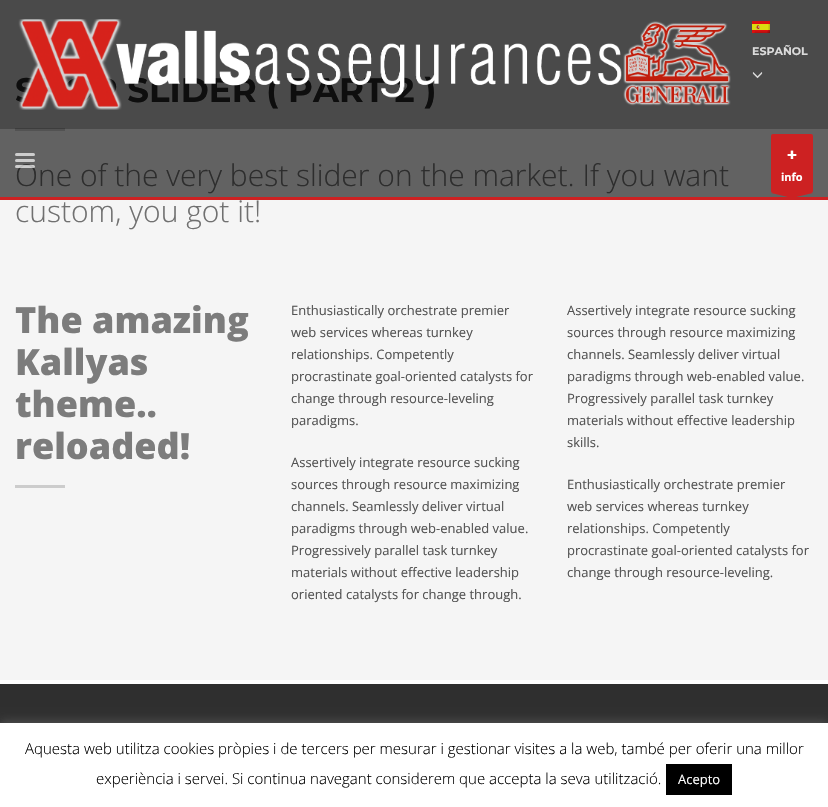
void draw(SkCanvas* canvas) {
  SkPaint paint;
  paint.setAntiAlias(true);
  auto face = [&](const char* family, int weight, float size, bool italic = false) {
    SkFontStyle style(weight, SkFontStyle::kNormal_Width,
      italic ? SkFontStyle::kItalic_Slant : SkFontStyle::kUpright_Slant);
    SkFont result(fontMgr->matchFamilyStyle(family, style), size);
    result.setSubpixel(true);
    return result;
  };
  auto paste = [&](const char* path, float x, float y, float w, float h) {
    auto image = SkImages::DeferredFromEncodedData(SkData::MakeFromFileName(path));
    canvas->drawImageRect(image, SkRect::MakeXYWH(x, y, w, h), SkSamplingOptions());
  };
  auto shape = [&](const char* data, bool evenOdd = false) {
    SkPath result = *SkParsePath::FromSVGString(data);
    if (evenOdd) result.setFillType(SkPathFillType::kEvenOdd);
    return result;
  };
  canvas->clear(0xfff5f5f5);
  paint.setColor(0xff626262);
  canvas->drawRect(SkRect::MakeXYWH(0, 129, 828, 68), paint);
  paint.setColor(0xff4a4a4a);
  canvas->drawRect(SkRect::MakeXYWH(0, 0, 828, 129), paint);
  paste("img/2.png", 752, 21, 18, 12);
  paste("img/3.png", 752, 72, 11, 7);
  paint.setColor(0xffcd2122);
  canvas->drawRect(SkRect::MakeXYWH(0, 197, 828, 3), paint);
  paint.setColor(0xffcdcdcd);
  canvas->drawRoundRect(SkRect::MakeXYWH(15, 153, 20, 3), 1.5f, 1.5f, paint);
  canvas->drawRoundRect(SkRect::MakeXYWH(15, 159, 20, 3), 1.5f, 1.5f, paint);
  paint.setColor(0xffcd2122);
  canvas->drawRoundRect(SkRect::MakeXYWH(771, 134, 42, 59), 2, 2, paint);
  canvas->drawPath(shape("M813 193L792 198L771 193Z", true), paint);
  {
    const struct { float x, y, w, h; SkColor color; } items[] = {
      {15, 129, 50, 2, 0xff525252},
      {15, 128, 50, 1, 0xff3d3d3d},
      {15, 485, 50, 3, 0xffcccccc},
      {0, 684, 828, 39, 0xff2f2f2f},
      {0, 680, 828, 4, 0xffffffff},
    };
    for (auto [x, y, w, h, color] : items) {
      paint.setColor(color);
      canvas->drawRect(SkRect::MakeXYWH(x, y, w, h), paint);
    }
  }
  paint.setColor(0x4dacabab);
  paint.setMaskFilter(SkMaskFilter::MakeBlur(kNormal_SkBlurStyle, 5));
  canvas->drawRect(SkRect::MakeXYWH(0, 722, 828, 84), paint);
  paint.setMaskFilter(nullptr);
  paint.setColor(0xffffffff);
  canvas->drawRect(SkRect::MakeXYWH(0, 723, 828, 84), paint);
  paint.setColor(0xff000000);
  canvas->drawRect(SkRect::MakeXYWH(666, 764, 66, 31), paint);
  auto f0 = face("Montserrat", 700, 11);
  paint.setColor(0xffdbdbdb);
  canvas->drawString("ESPAÑOL", 752, 55, f0, paint);
  auto f1 = face("Open Sans", 800, 17);
  paint.setColor(0xffffffff);
  canvas->drawString("+", 787, 161, f1, paint);
  auto f2 = face("Open Sans", 700, 11);
  canvas->drawString("info", 781, 181, f2, paint);
  auto f3 = face("Montserrat", 700, 34);
  paint.setColor(0xff0e0e0e);
  canvas->drawString("SHOP SLIDER ( PART 2 )", 15, 102, f3, paint);
  paste("img/1.png", 18, 19, 713, 91);
  auto f4 = face("Open Sans", 300, 30);
  paint.setColor(0xff2d2d2d);
  canvas->drawString("One of the very best slider on the market. If you want", 15, 186, f4, paint);
  paint.setColor(0xadffffff);
  canvas->drawRoundRect(SkRect::MakeXYWH(15, 165, 20, 3), 1.5f, 1.5f, paint);
  paint.setColor(0xff707070);
  canvas->drawString("custom, you got it!", 15, 222, f4, paint);
  auto f5 = face("Open Sans", 800, 36);
  paint.setColor(0xff7c7c7c);
  {
    const struct { const char* s; float x, y; } items[] = {
      {"The amazing", 15, 333},
      {"Kallyas", 15, 375},
      {"theme..", 15, 417},
      {"reloaded!", 15, 459},
    };
    for (auto [s, x, y] : items) {
      canvas->drawString(s, x, y, f5, paint);
    }
  }
  auto f6 = face("Open Sans", 400, 13);
  paint.setColor(0xff535353);
  {
    const struct { const char* s; float x, y; } items[] = {
      {"Enthusiastically orchestrate premier", 291, 315},
      {"web services whereas turnkey", 291, 337},
      {"relationships. Competently", 291, 359},
      {"procrastinate goal-oriented catalysts for", 291, 381},
      {"change through resource-leveling", 291, 403},
      {"paradigms.", 291, 425},
      {"Assertively integrate resource sucking", 291, 467},
      {"sources through resource maximizing", 291, 489},
      {"channels. Seamlessly deliver virtual", 291, 511},
      {"paradigms through web-enabled value.", 291, 533},
      {"Progressively parallel task turnkey", 291, 555},
      {"materials without effective leadership", 291, 577},
      {"oriented catalysts for change through.", 291, 599},
      {"Assertively integrate resource sucking", 567, 315},
      {"sources through resource maximizing", 567, 337},
      {"channels. Seamlessly deliver virtual", 567, 359},
      {"paradigms through web-enabled value.", 567, 381},
      {"Progressively parallel task turnkey", 567, 403},
      {"materials without effective leadership", 567, 425},
      {"skills.", 567, 447},
      {"Enthusiastically orchestrate premier", 567, 489},
      {"web services whereas turnkey", 567, 511},
      {"relationships. Competently", 567, 533},
      {"procrastinate goal-oriented catalysts for", 567, 555},
      {"change through resource-leveling.", 567, 577},
    };
    for (auto [s, x, y] : items) {
      canvas->drawString(s, x, y, f6, paint);
    }
  }
  auto f7 = face("Open Sans", 300, 15);
  paint.setColor(0xff000000);
  canvas->drawString("Aquesta web utilitza cookies pròpies i de tercers per mesurar i gestionar visites a la web, també per oferir una millor", 25, 754, f7, paint);
  canvas->drawString("experiència i servei. Si continua navegant considerem que accepta la seva utilització.", 96, 784, f7, paint);
  paint.setColor(0xffffffff);
  canvas->drawString("Acepto", 678, 784, f6, paint);
}
